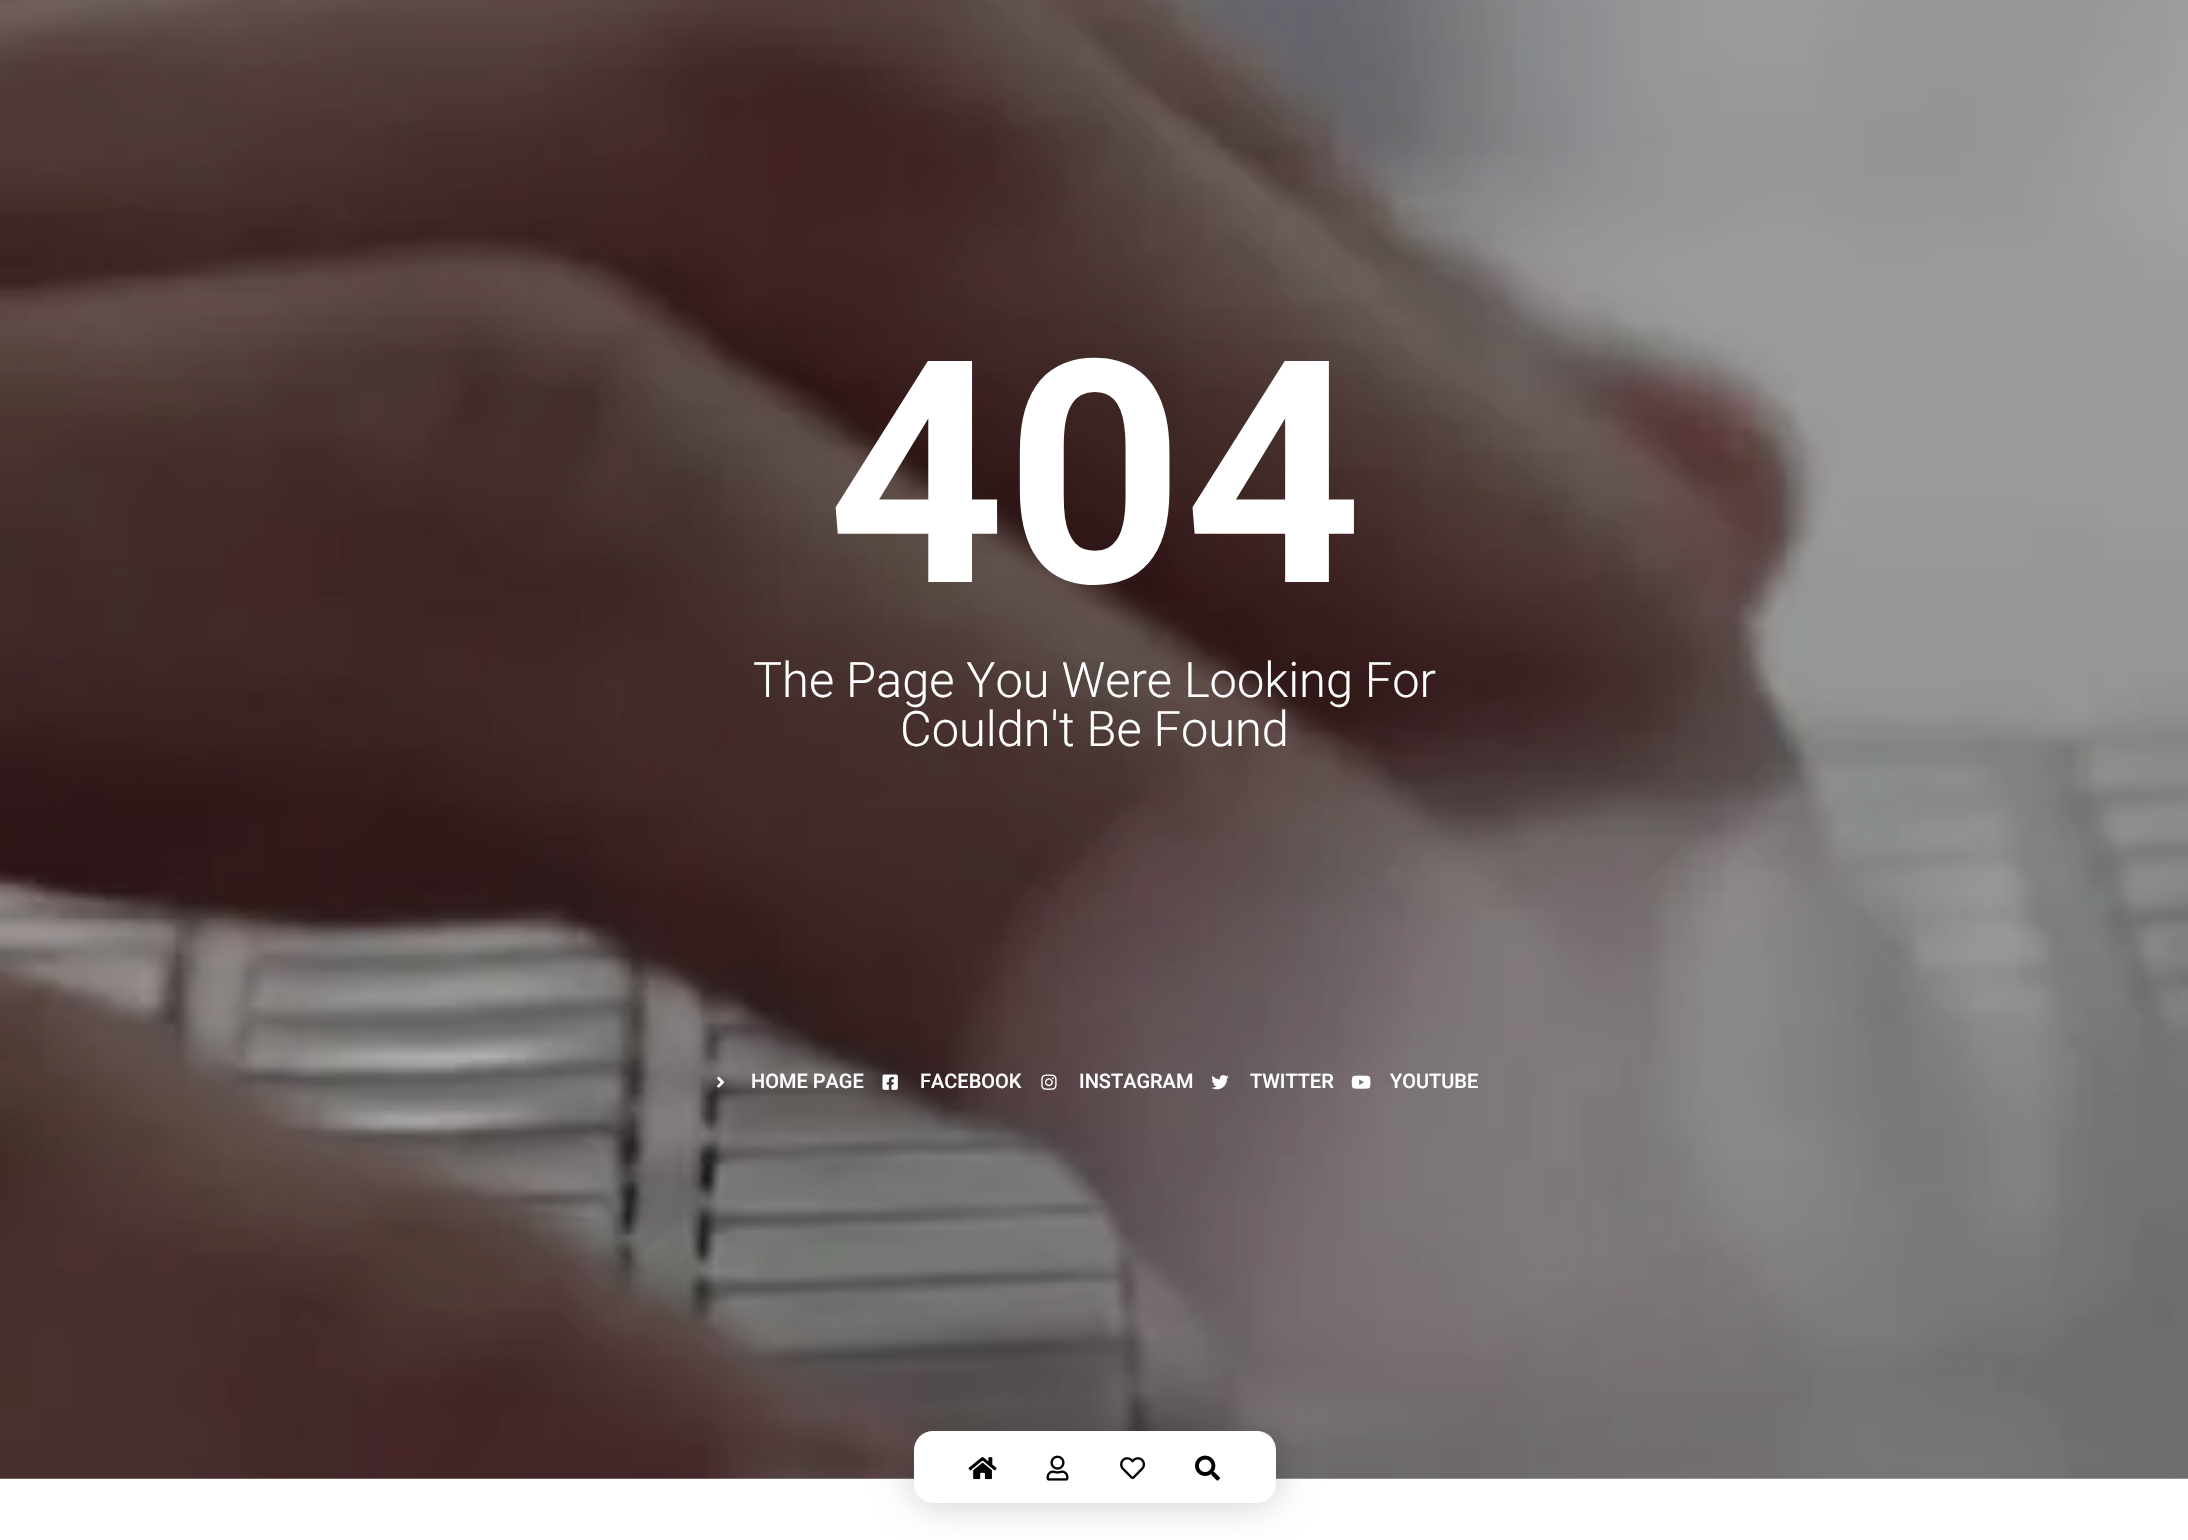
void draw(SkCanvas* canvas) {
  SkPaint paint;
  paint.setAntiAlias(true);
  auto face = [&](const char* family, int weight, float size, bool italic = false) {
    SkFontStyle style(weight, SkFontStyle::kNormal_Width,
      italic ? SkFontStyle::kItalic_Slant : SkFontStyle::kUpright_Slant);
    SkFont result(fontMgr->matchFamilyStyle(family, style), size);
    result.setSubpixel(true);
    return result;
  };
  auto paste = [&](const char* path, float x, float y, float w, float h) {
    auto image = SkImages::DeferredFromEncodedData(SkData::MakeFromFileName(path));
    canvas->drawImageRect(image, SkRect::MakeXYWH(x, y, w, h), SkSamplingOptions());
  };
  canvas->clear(0xffffffff);
  paste("img/1.png", 0, 0, 2188, 1479);
  paste("img/2.png", 717, 1076, 8, 12);
  paste("img/3.png", 882, 1074, 16, 16);
  paste("img/4.png", 1041, 1074, 16, 16);
  paste("img/5.png", 1211, 1075, 18, 15);
  paste("img/6.png", 1351, 1075, 20, 14);
  paint.setColor(0x33000000);
  paint.setMaskFilter(SkMaskFilter::MakeBlur(kNormal_SkBlurStyle, 19));
  canvas->drawRoundRect(SkRect::MakeXYWH(914, 1431, 362, 72), 19, 19, paint);
  paint.setMaskFilter(nullptr);
  paint.setColor(0xffffffff);
  canvas->drawRoundRect(SkRect::MakeXYWH(914, 1431, 362, 72), 19, 19, paint);
  paste("img/7.png", 968, 1457, 29, 23);
  paste("img/8.png", 1046, 1455, 23, 26);
  paste("img/9.png", 1120, 1457, 26, 22);
  paste("img/10.png", 1195, 1455, 25, 26);
  auto f0 = face("Roboto", 700, 311);
  canvas->drawString("404", 827, 582, f0, paint);
  auto f1 = face("Roboto", 300, 48.75f);
  canvas->drawString("The Page You Were Looking For", 753, 697, f1, paint);
  canvas->drawString("Couldn't Be Found", 900, 746, f1, paint);
  auto f2 = face("Roboto", 500, 20);
  {
    const struct { const char* s; float x, y; } items[] = {
      {"HOME PAGE", 751, 1088},
      {"FACEBOOK", 920, 1088},
      {"INSTAGRAM", 1079, 1088},
      {"TWITTER", 1250, 1088},
      {"YOUTUBE", 1390, 1088},
    };
    for (auto [s, x, y] : items) {
      canvas->drawString(s, x, y, f2, paint);
    }
  }
}
